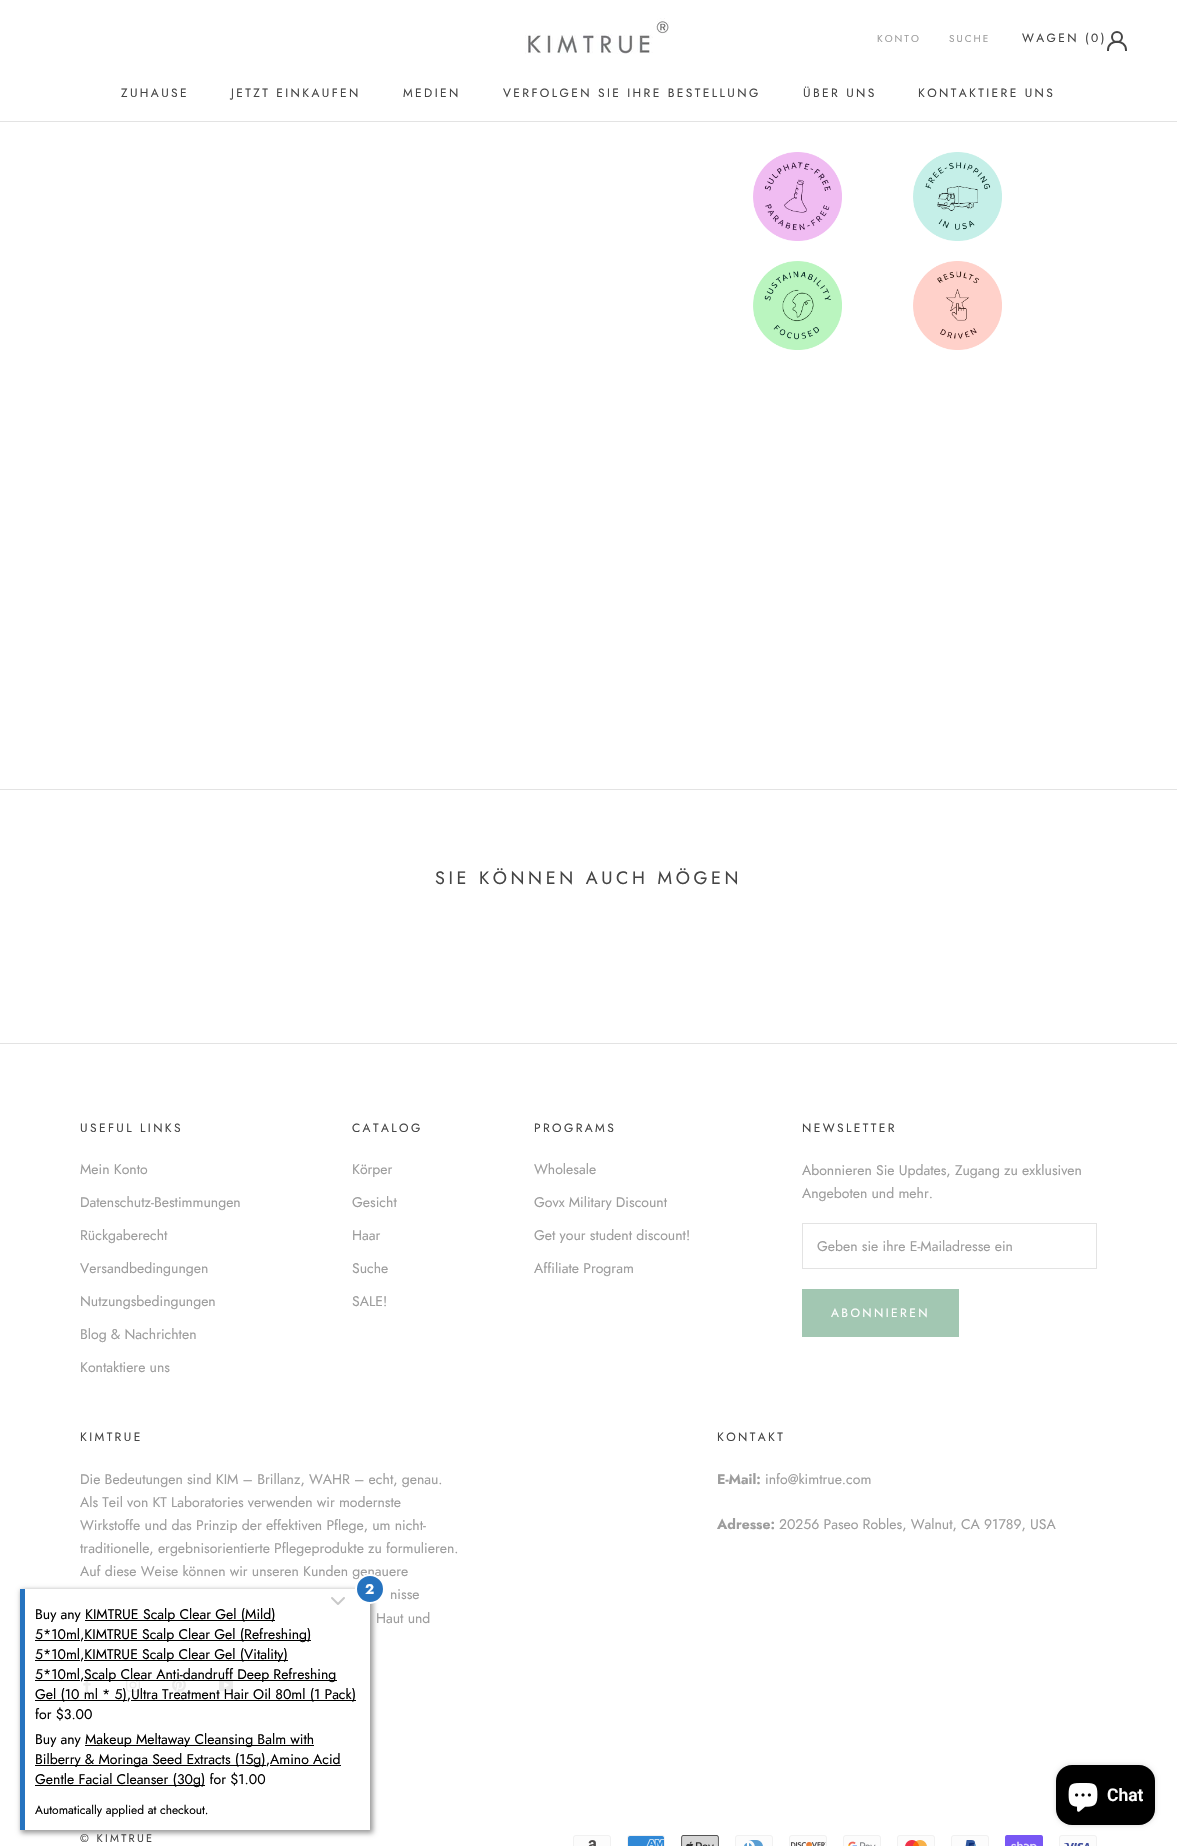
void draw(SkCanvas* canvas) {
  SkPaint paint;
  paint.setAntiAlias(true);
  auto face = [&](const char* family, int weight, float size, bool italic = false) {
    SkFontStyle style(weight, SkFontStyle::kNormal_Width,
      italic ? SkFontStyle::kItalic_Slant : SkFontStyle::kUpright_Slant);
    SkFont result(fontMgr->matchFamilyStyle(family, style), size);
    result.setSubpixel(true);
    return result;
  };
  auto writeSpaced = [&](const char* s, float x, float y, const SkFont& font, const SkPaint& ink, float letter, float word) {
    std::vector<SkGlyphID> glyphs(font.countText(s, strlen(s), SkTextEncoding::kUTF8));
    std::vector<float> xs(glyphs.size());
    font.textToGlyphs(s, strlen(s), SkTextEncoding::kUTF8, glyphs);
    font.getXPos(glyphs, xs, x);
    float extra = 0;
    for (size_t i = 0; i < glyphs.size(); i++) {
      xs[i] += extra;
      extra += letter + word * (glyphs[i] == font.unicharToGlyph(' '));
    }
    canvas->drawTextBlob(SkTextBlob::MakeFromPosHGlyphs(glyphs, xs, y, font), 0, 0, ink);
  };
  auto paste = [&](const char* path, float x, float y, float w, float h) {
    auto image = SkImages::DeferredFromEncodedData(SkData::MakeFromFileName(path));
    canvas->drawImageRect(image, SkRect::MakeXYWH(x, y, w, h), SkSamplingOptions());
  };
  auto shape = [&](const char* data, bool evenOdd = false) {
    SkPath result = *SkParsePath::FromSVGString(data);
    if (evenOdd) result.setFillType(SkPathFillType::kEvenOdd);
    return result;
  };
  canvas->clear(0xffffffff);
  paint.setColor(0xffe3e3e3);
  canvas->drawRect(SkRect::MakeXYWH(0, 121, 1177, 1), paint);
  paste("img/1.png", 525, 18, 144, 36);
  paint.setStroke(true);
  paint.setStrokeWidth(2);
  paint.setStrokeCap(SkPaint::kSquare_Cap);
  paint.setColor(0xff454545);
  canvas->drawPath(shape("M1108 50C1108 39 1126 39 1126 50"), paint);
  paint.setStrokeCap(SkPaint::kButt_Cap);
  canvas->drawCircle(1117, 37, 5, paint);
  paste("img/2.png", 753, 152, 89, 89);
  paste("img/3.png", 913, 152, 89, 89);
  paste("img/4.png", 753, 261, 89, 89);
  paste("img/5.png", 913, 261, 89, 89);
  paint.setStroke(false);
  paint.setColor(0xffe3e3e3);
  canvas->drawRect(SkRect::MakeXYWH(0, 789, 1177, 1), paint);
  canvas->drawRect(SkRect::MakeXYWH(0, 1043, 1177, 1), paint);
  paint.setStroke(true);
  paint.setStrokeWidth(1);
  canvas->drawRect(SkRect::MakeXYWH(802.5f, 1223.5f, 294, 45), paint);
  paint.setColor(0xffa2c7b2);
  canvas->drawRect(SkRect::MakeXYWH(802.5f, 1289.5f, 156, 47), paint);
  paint.setStroke(false);
  canvas->drawRect(SkRect::MakeXYWH(803, 1290, 155, 46), paint);
  paste("img/6.png", 83, 1678, 8, 14);
  paste("img/7.png", 126, 1678, 14, 14);
  paste("img/8.png", 172, 1678, 14, 14);
  paste("img/9.png", 219, 1678, 14, 14);
  paste("img/10.png", 573, 1835, 38, 11);
  paste("img/11.png", 627, 1835, 38, 11);
  paste("img/12.png", 681, 1835, 38, 11);
  paste("img/13.png", 735, 1835, 38, 11);
  paste("img/14.png", 789, 1835, 38, 11);
  paste("img/15.png", 843, 1835, 38, 11);
  paste("img/16.png", 897, 1835, 38, 11);
  paste("img/17.png", 951, 1835, 38, 11);
  paste("img/18.png", 1005, 1835, 38, 11);
  paste("img/19.png", 1059, 1835, 38, 11);
  canvas->save();
  canvas->clipPath(shape("M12 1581H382V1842H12ZM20 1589H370V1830H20Z", true), true);
  paint.setColor(0x66000000);
  paint.setMaskFilter(SkMaskFilter::MakeBlur(kNormal_SkBlurStyle, 2.5f));
  canvas->drawRect(SkRect::MakeXYWH(21, 1590, 352, 243), paint);
  paint.setMaskFilter(nullptr);
  canvas->restore();
  paint.setColor(0xccffffff);
  canvas->drawRect(SkRect::MakeXYWH(83, 1678, 150, 14), paint);
  paint.setColor(0xff2673bf);
  canvas->drawRect(SkRect::MakeXYWH(20, 1589, 5, 241), paint);
  paste("img/20.png", 331, 1597, 14, 8);
  {
    const struct { float x, y, w, h; SkColor color; } items[] = {
      {85, 1620, 190, 1, 0xff000000},
      {35, 1640, 45, 1, 0xff000000},
      {84, 1640, 227, 1, 0xff000000},
      {35, 1660, 45, 1, 0xff000000},
      {84, 1660, 204, 1, 0xff000000},
      {35, 1680, 45, 1, 0xff000000},
      {84, 1680, 253, 1, 0xff000000},
      {35, 1700, 92, 1, 0xff000000},
      {131, 1700, 225, 1, 0xff000000},
      {85, 1745, 229, 1, 0xff000000},
      {35, 1765, 231, 1, 0xff000000},
      {270, 1765, 71, 1, 0xff000000},
      {35, 1785, 170, 1, 0xff000000},
    };
    for (auto [x, y, w, h, color] : items) {
      paint.setColor(color);
      canvas->drawRect(SkRect::MakeXYWH(x, y, w, h), paint);
    }
  }
  paint.setColor(0x26000000);
  paint.setMaskFilter(SkMaskFilter::MakeBlur(kNormal_SkBlurStyle, 2.5f));
  canvas->drawRoundRect(SkRect::MakeXYWH(1056, 1765, 99, 60), 16, 16, paint);
  paint.setMaskFilter(nullptr);
  paint.setColor(0xff000000);
  canvas->drawRoundRect(SkRect::MakeXYWH(1056, 1765, 99, 60), 16, 16, paint);
  paste("img/21.png", 1068, 1783, 30, 29);
  auto f0 = face("Jost", 400, 10);
  paint.setColor(0xff9d9d9d);
  writeSpaced("KONTO", 877, 42, f0, paint, 2, 0);
  writeSpaced("SUCHE", 949, 42, f0, paint, 2, 0);
  auto f1 = face("Jost", 400, 12);
  paint.setColor(0xff454545);
  {
    const struct { const char* s; float x, y; } items[] = {
      {"WAGEN (0)", 1022, 42},
      {"ZUHAUSE", 121, 97},
      {"JETZT EINKAUFEN", 231, 97},
      {"MEDIEN", 403, 97},
      {"VERFOLGEN SIE IHRE BESTELLUNG", 503, 97},
      {"ÜBER UNS", 803, 97},
      {"KONTAKTIERE UNS", 918, 97},
    };
    for (auto [s, x, y] : items) {
      writeSpaced(s, x, y, f1, paint, 2.4f, 0);
    }
  }
  auto f2 = face("Jost", 400, 18);
  writeSpaced("SIE KÖNNEN AUCH MÖGEN", 435, 884, f2, paint, 3.6f, 0);
  writeSpaced("USEFUL LINKS", 80, 1132, f1, paint, 2.4f, 0);
  auto f3 = face("Jost", 400, 14);
  paint.setColor(0xff9d9d9d);
  {
    const struct { const char* s; float x, y; } items[] = {
      {"Mein Konto", 80, 1174},
      {"Datenschutz-Bestimmungen", 80, 1207},
      {"Rückgaberecht", 80, 1240},
      {"Versandbedingungen", 80, 1273},
      {"Nutzungsbedingungen", 80, 1306},
      {"Blog & Nachrichten", 80, 1339},
      {"Kontaktiere uns", 80, 1372},
    };
    for (auto [s, x, y] : items) {
      canvas->drawString(s, x, y, f3, paint);
    }
  }
  paint.setColor(0xff454545);
  writeSpaced("CATALOG", 352, 1132, f1, paint, 2.4f, 0);
  paint.setColor(0xff9d9d9d);
  {
    const struct { const char* s; float x, y; } items[] = {
      {"Körper", 352, 1174},
      {"Gesicht", 352, 1207},
      {"Haar", 352, 1240},
      {"Suche", 352, 1273},
      {"SALE!", 352, 1306},
    };
    for (auto [s, x, y] : items) {
      canvas->drawString(s, x, y, f3, paint);
    }
  }
  paint.setColor(0xff454545);
  writeSpaced("PROGRAMS", 534, 1132, f1, paint, 2.4f, 0);
  paint.setColor(0xff9d9d9d);
  {
    const struct { const char* s; float x, y; } items[] = {
      {"Wholesale", 534, 1174},
      {"Govx Military Discount", 534, 1207},
      {"Get your student discount!", 534, 1240},
      {"Affiliate Program", 534, 1273},
    };
    for (auto [s, x, y] : items) {
      canvas->drawString(s, x, y, f3, paint);
    }
  }
  paint.setColor(0xff454545);
  writeSpaced("NEWSLETTER", 802, 1132, f1, paint, 2.4f, 0);
  paint.setColor(0xff9d9d9d);
  {
    const struct { const char* s; float x, y; } items[] = {
      {"Abonnieren Sie Updates, Zugang zu exklusiven", 802, 1175},
      {"Angeboten und mehr.", 802, 1198},
      {"Geben sie ihre E-Mailadresse ein", 817, 1251},
    };
    for (auto [s, x, y] : items) {
      canvas->drawString(s, x, y, f3, paint);
    }
  }
  paint.setColor(0xffffffff);
  writeSpaced("ABONNIEREN", 831, 1317, f1, paint, 2.4f, 0);
  paint.setColor(0xff454545);
  writeSpaced("KIMTRUE", 80, 1441, f1, paint, 2.4f, 0);
  paint.setColor(0xff9d9d9d);
  {
    const struct { const char* s; float x, y; } items[] = {
      {"Die Bedeutungen sind KIM – Brillanz, WAHR – echt, genau.", 80, 1484},
      {"Als Teil von KT Laboratories verwenden wir modernste", 80, 1507},
      {"Wirkstoffe und das Prinzip der effektiven Pflege, um nicht-", 80, 1530},
      {"traditionelle, ergebnisorientierte Pflegeprodukte zu formulieren.", 80, 1553},
      {"Auf diese Weise können wir unseren Kunden genauere", 80, 1576},
      {"nisse", 390, 1599},
      {"Haut und", 376, 1623},
    };
    for (auto [s, x, y] : items) {
      canvas->drawString(s, x, y, f3, paint);
    }
  }
  paint.setColor(0xff454545);
  writeSpaced("KONTAKT", 717, 1441, f1, paint, 2.4f, 0);
  auto f4 = face("Jost", 700, 14);
  paint.setColor(0xff9d9d9d);
  canvas->drawString("E-Mail:", 717, 1484, f4, paint);
  canvas->drawString("info@kimtrue.com", 765, 1484, f3, paint);
  canvas->drawString("Adresse:", 717, 1529, f4, paint);
  canvas->drawString("20256 Paseo Robles, Walnut, CA 91789, USA", 779, 1529, f3, paint);
  auto f5 = face("Jost", 400, 11);
  paint.setColor(0xff454545);
  writeSpaced("© KIMTRUE", 80, 1842, f5, paint, 2.25f, 0);
  paint.setColor(0xff2673bf);
  canvas->drawCircle(370, 1589, 14, paint);
  paint.setStroke(true);
  paint.setStrokeWidth(2);
  paint.setColor(0xffffffff);
  canvas->drawCircle(370, 1589, 14, paint);
  paint.setStroke(false);
  canvas->drawString("2", 365, 1594, f4, paint);
  paint.setColor(0xff000000);
  {
    const struct { const char* s; float x, y; } items[] = {
      {"Buy any KIMTRUE", 35, 1619},
      {"Scalp Clear Gel (Mild)", 143, 1619},
      {"5*10ml,KIMTRUE", 35, 1639},
      {"Scalp Clear Gel (Refreshing)", 142, 1639},
      {"5*10ml,KIMTRUE", 35, 1659},
      {"Scalp Clear Gel (Vitality)", 142, 1659},
      {"5*10ml,", 35, 1679},
      {"Scalp Clear Anti-dandruff Deep Refreshing", 84, 1679},
      {"Gel (10 ml * 5),", 35, 1699},
      {"Ultra Treatment Hair Oil 80ml (1 Pack)", 131, 1699},
      {"for $3.00", 35, 1719},
      {"Buy any", 35, 1744},
      {"Makeup Meltaway Cleansing Balm with", 85, 1744},
      {"Bilberry & Moringa Seed Extracts (15g),Amino Acid", 35, 1764},
      {"Gentle Facial Cleanser (30g) for $1.00", 35, 1784},
    };
    for (auto [s, x, y] : items) {
      canvas->drawString(s, x, y, f3, paint);
    }
  }
  canvas->drawString("Automatically applied at checkout.", 35, 1814, f1, paint);
  auto f6 = face("Roboto", 600, 17.5f);
  paint.setColor(0xffffffff);
  canvas->drawString("Chat", 1107, 1801, f6, paint);
}
